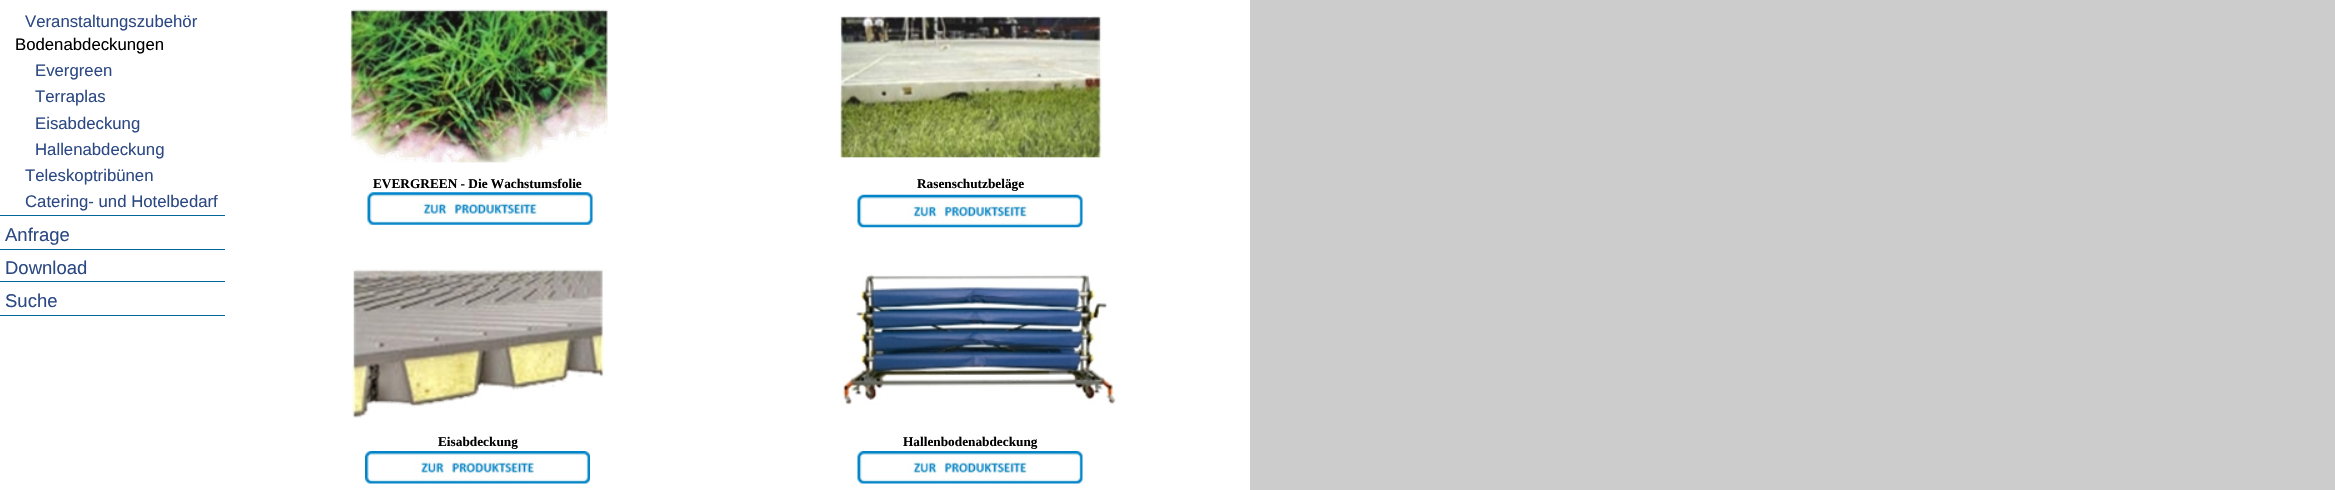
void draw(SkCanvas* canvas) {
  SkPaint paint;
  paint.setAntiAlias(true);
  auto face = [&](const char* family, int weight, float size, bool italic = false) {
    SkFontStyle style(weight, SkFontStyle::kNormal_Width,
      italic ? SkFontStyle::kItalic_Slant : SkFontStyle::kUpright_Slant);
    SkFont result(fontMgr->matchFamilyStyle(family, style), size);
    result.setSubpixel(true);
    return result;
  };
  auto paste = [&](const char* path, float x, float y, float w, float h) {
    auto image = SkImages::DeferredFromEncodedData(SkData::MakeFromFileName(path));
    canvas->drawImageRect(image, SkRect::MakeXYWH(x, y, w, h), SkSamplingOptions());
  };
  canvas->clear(0xffcccccc);
  {
    const struct { float x, y, w, h; SkColor color; } items[] = {
      {0, 0, 1250, 490, 0xffffffff},
      {0, 215, 225, 1, 0xff006699},
      {0, 249, 225, 1, 0xff006699},
      {0, 281, 225, 1, 0xff006699},
      {0, 315, 225, 1, 0xff006699},
    };
    for (auto [x, y, w, h, color] : items) {
      paint.setColor(color);
      canvas->drawRect(SkRect::MakeXYWH(x, y, w, h), paint);
    }
  }
  paste("img/1.png", 350, 9, 259, 154);
  paste("img/2.png", 839, 16, 263, 142);
  paste("img/3.png", 367, 192, 226, 33);
  paste("img/4.png", 857, 194, 226, 34);
  paste("img/5.png", 352, 269, 252, 149);
  paste("img/6.png", 842, 274, 274, 131);
  paste("img/7.png", 365, 451, 225, 33);
  paste("img/8.png", 857, 451, 226, 33);
  auto f0 = face("Liberation Sans", 400, 16.75f);
  paint.setColor(0xff2c4983);
  canvas->drawString("Veranstaltungszubehör", 25, 27, f0, paint);
  paint.setColor(0xff000000);
  canvas->drawString("Bodenabdeckungen", 15, 50, f0, paint);
  paint.setColor(0xff2c4983);
  {
    const struct { const char* s; float x, y; } items[] = {
      {"Evergreen", 35, 76},
      {"Terraplas", 35, 102},
      {"Eisabdeckung", 35, 129},
      {"Hallenabdeckung", 35, 155},
      {"Teleskoptribünen", 25, 181},
      {"Catering- und Hotelbedarf", 25, 207},
    };
    for (auto [s, x, y] : items) {
      canvas->drawString(s, x, y, f0, paint);
    }
  }
  auto f1 = face("Liberation Sans", 400, 18.5f);
  {
    const struct { const char* s; float x, y; } items[] = {
      {"Anfrage", 5, 241},
      {"Download", 5, 274},
      {"Suche", 5, 307},
    };
    for (auto [s, x, y] : items) {
      canvas->drawString(s, x, y, f1, paint);
    }
  }
  auto f2 = face("Liberation Serif", 700, 13.3f);
  paint.setColor(0xff000000);
  {
    const struct { const char* s; float x, y; } items[] = {
      {"EVERGREEN - Die Wachstumsfolie", 373, 188},
      {"Rasenschutzbeläge", 917, 188},
      {"Eisabdeckung", 438, 446},
      {"Hallenbodenabdeckung", 903, 446},
    };
    for (auto [s, x, y] : items) {
      canvas->drawString(s, x, y, f2, paint);
    }
  }
}
